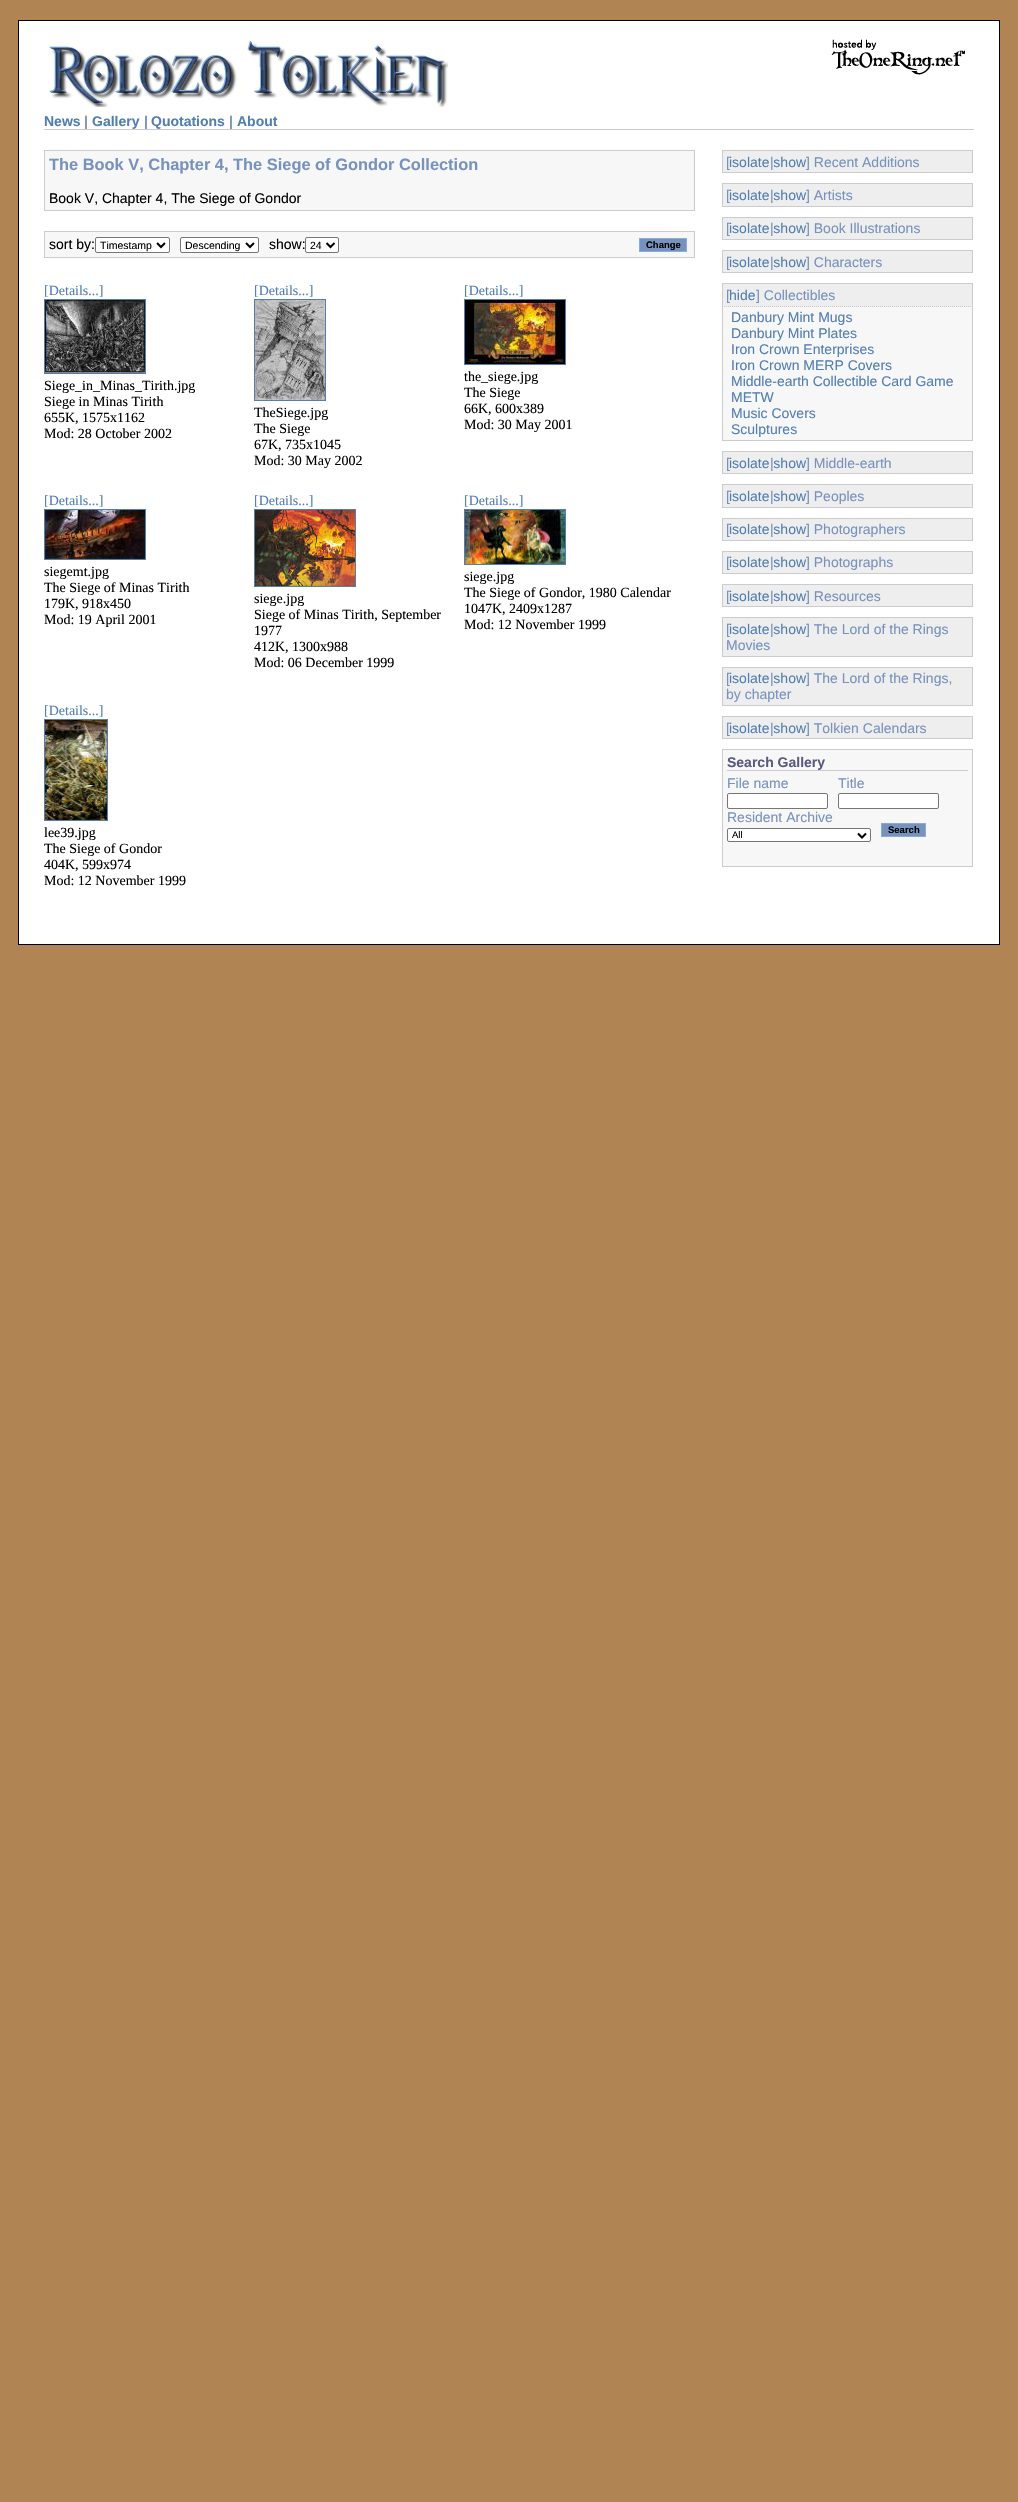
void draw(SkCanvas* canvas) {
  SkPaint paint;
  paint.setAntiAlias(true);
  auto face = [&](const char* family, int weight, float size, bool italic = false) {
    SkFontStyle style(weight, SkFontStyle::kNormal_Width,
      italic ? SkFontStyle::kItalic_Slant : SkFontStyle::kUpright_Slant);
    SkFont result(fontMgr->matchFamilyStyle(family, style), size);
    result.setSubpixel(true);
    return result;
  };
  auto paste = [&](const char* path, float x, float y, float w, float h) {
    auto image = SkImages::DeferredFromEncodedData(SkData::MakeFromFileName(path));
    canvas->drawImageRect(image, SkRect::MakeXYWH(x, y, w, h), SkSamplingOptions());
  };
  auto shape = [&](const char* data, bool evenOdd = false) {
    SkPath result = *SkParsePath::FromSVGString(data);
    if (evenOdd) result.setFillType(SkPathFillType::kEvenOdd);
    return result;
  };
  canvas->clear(0xffb08553);
  paint.setColor(0xffffffff);
  canvas->drawRect(SkRect::MakeXYWH(18.5f, 20.5f, 981, 924), paint);
  paint.setStroke(true);
  paint.setStrokeWidth(1);
  paint.setColor(0xff000000);
  canvas->drawRect(SkRect::MakeXYWH(18.5f, 20.5f, 981, 924), paint);
  paste("img/1.png", 49, 40, 399, 67);
  paste("img/2.png", 831, 39, 134, 36);
  paint.setStroke(false);
  paint.setColor(0xffcccccc);
  canvas->drawRect(SkRect::MakeXYWH(44, 129, 930, 1), paint);
  paint.setColor(0xfff7f7f7);
  canvas->drawRect(SkRect::MakeXYWH(44.5f, 150.5f, 650, 60), paint);
  paint.setStroke(true);
  paint.setColor(0xffcccccc);
  canvas->drawRect(SkRect::MakeXYWH(44.5f, 150.5f, 650, 60), paint);
  paint.setStroke(false);
  paint.setColor(0xfff7f7f7);
  canvas->drawRect(SkRect::MakeXYWH(44.5f, 231.5f, 650, 26), paint);
  paint.setStroke(true);
  paint.setColor(0xffcccccc);
  canvas->drawRect(SkRect::MakeXYWH(44.5f, 231.5f, 650, 26), paint);
  paint.setStroke(false);
  paint.setColor(0xffffffff);
  canvas->drawRoundRect(SkRect::MakeXYWH(95.5f, 237.5f, 74, 15), 1.5f, 1.5f, paint);
  paint.setStroke(true);
  paint.setColor(0xff767676);
  canvas->drawRoundRect(SkRect::MakeXYWH(95.5f, 237.5f, 74, 15), 1.5f, 1.5f, paint);
  paint.setStrokeWidth(2);
  paint.setColor(0xff000000);
  canvas->drawPath(shape("M157 243L161 247L165 243"), paint);
  paint.setStroke(false);
  paint.setColor(0xffffffff);
  canvas->drawRoundRect(SkRect::MakeXYWH(180.5f, 237.5f, 78, 15), 1.5f, 1.5f, paint);
  paint.setStroke(true);
  paint.setStrokeWidth(1);
  paint.setColor(0xff767676);
  canvas->drawRoundRect(SkRect::MakeXYWH(180.5f, 237.5f, 78, 15), 1.5f, 1.5f, paint);
  paint.setStrokeWidth(2);
  paint.setColor(0xff000000);
  canvas->drawPath(shape("M246 243L250 247L254 243"), paint);
  paint.setStroke(false);
  paint.setColor(0xffffffff);
  canvas->drawRoundRect(SkRect::MakeXYWH(305.5f, 237.5f, 33, 15), 1.5f, 1.5f, paint);
  paint.setStroke(true);
  paint.setStrokeWidth(1);
  paint.setColor(0xff767676);
  canvas->drawRoundRect(SkRect::MakeXYWH(305.5f, 237.5f, 33, 15), 1.5f, 1.5f, paint);
  paint.setStrokeWidth(2);
  paint.setColor(0xff000000);
  canvas->drawPath(shape("M326.5 243L330.5 247L334.5 243"), paint);
  paint.setStroke(false);
  paint.setColor(0xff7792bc);
  canvas->drawRect(SkRect::MakeXYWH(639.5f, 238.5f, 47, 13), paint);
  paint.setStroke(true);
  paint.setStrokeWidth(1);
  paint.setColor(0xff88aadd);
  canvas->drawRect(SkRect::MakeXYWH(639.5f, 238.5f, 47, 13), paint);
  paint.setColor(0xff537eb0);
  canvas->drawRect(SkRect::MakeXYWH(44.5f, 299.5f, 101, 74), paint);
  paste("img/3.png", 45, 300, 100, 73);
  canvas->drawRect(SkRect::MakeXYWH(254.5f, 299.5f, 71, 101), paint);
  paste("img/4.png", 255, 300, 70, 100);
  canvas->drawRect(SkRect::MakeXYWH(464.5f, 299.5f, 101, 65), paint);
  paste("img/5.png", 465, 300, 100, 64);
  canvas->drawRect(SkRect::MakeXYWH(44.5f, 509.5f, 101, 50), paint);
  paste("img/6.png", 45, 510, 100, 49);
  canvas->drawRect(SkRect::MakeXYWH(254.5f, 509.5f, 101, 77), paint);
  paste("img/7.png", 255, 510, 100, 76);
  canvas->drawRect(SkRect::MakeXYWH(464.5f, 509.5f, 101, 55), paint);
  paste("img/8.png", 465, 510, 100, 54);
  canvas->drawRect(SkRect::MakeXYWH(44.5f, 719.5f, 63, 101), paint);
  paste("img/9.png", 45, 720, 62, 100);
  paint.setStroke(false);
  paint.setColor(0xffeeeeee);
  canvas->drawRect(SkRect::MakeXYWH(722.5f, 150.5f, 250, 22), paint);
  paint.setStroke(true);
  paint.setColor(0xffcccccc);
  canvas->drawRect(SkRect::MakeXYWH(722.5f, 150.5f, 250, 22), paint);
  paint.setStroke(false);
  paint.setColor(0xffeeeeee);
  canvas->drawRect(SkRect::MakeXYWH(722.5f, 183.5f, 250, 23), paint);
  paint.setStroke(true);
  paint.setColor(0xffcccccc);
  canvas->drawRect(SkRect::MakeXYWH(722.5f, 183.5f, 250, 23), paint);
  paint.setStroke(false);
  paint.setColor(0xffeeeeee);
  canvas->drawRect(SkRect::MakeXYWH(722.5f, 217.5f, 250, 22), paint);
  paint.setStroke(true);
  paint.setColor(0xffcccccc);
  canvas->drawRect(SkRect::MakeXYWH(722.5f, 217.5f, 250, 22), paint);
  paint.setStroke(false);
  paint.setColor(0xffeeeeee);
  canvas->drawRect(SkRect::MakeXYWH(722.5f, 250.5f, 250, 22), paint);
  paint.setStroke(true);
  paint.setColor(0xffcccccc);
  canvas->drawRect(SkRect::MakeXYWH(722.5f, 250.5f, 250, 22), paint);
  paint.setStroke(false);
  {
    const struct { float x, y, w, h; SkColor color; } items[] = {
      {723, 284, 249, 23, 0xffeeeeee},
      {722, 283, 251, 1, 0xffcccccc},
      {972, 283, 1, 158, 0xffcccccc},
    };
    for (auto [x, y, w, h, color] : items) {
      paint.setColor(color);
      canvas->drawRect(SkRect::MakeXYWH(x, y, w, h), paint);
    }
  }
  paint.setStroke(true);
  paint.setPathEffect(SkDashPathEffect::Make({{1, 1}}, 0));
  canvas->drawPath(shape("M722 306.5H973"), paint);
  paint.setPathEffect(nullptr);
  paint.setStroke(false);
  {
    const struct { float x, y, w, h; SkColor color; } items[] = {
      {722, 283, 1, 24, 0xffcccccc},
      {723, 307, 249, 133, 0xfff7f7f7},
      {722, 440, 251, 1, 0xffcccccc},
      {722, 307, 1, 134, 0xffcccccc},
    };
    for (auto [x, y, w, h, color] : items) {
      paint.setColor(color);
      canvas->drawRect(SkRect::MakeXYWH(x, y, w, h), paint);
    }
  }
  paint.setColor(0xffeeeeee);
  canvas->drawRect(SkRect::MakeXYWH(722.5f, 451.5f, 250, 22), paint);
  paint.setStroke(true);
  paint.setColor(0xffcccccc);
  canvas->drawRect(SkRect::MakeXYWH(722.5f, 451.5f, 250, 22), paint);
  paint.setStroke(false);
  paint.setColor(0xffeeeeee);
  canvas->drawRect(SkRect::MakeXYWH(722.5f, 484.5f, 250, 23), paint);
  paint.setStroke(true);
  paint.setColor(0xffcccccc);
  canvas->drawRect(SkRect::MakeXYWH(722.5f, 484.5f, 250, 23), paint);
  paint.setStroke(false);
  paint.setColor(0xffeeeeee);
  canvas->drawRect(SkRect::MakeXYWH(722.5f, 518.5f, 250, 22), paint);
  paint.setStroke(true);
  paint.setColor(0xffcccccc);
  canvas->drawRect(SkRect::MakeXYWH(722.5f, 518.5f, 250, 22), paint);
  paint.setStroke(false);
  paint.setColor(0xffeeeeee);
  canvas->drawRect(SkRect::MakeXYWH(722.5f, 551.5f, 250, 22), paint);
  paint.setStroke(true);
  paint.setColor(0xffcccccc);
  canvas->drawRect(SkRect::MakeXYWH(722.5f, 551.5f, 250, 22), paint);
  paint.setStroke(false);
  paint.setColor(0xffeeeeee);
  canvas->drawRect(SkRect::MakeXYWH(722.5f, 584.5f, 250, 22), paint);
  paint.setStroke(true);
  paint.setColor(0xffcccccc);
  canvas->drawRect(SkRect::MakeXYWH(722.5f, 584.5f, 250, 22), paint);
  paint.setStroke(false);
  paint.setColor(0xffeeeeee);
  canvas->drawRect(SkRect::MakeXYWH(722.5f, 617.5f, 250, 39), paint);
  paint.setStroke(true);
  paint.setColor(0xffcccccc);
  canvas->drawRect(SkRect::MakeXYWH(722.5f, 617.5f, 250, 39), paint);
  paint.setStroke(false);
  paint.setColor(0xffeeeeee);
  canvas->drawRect(SkRect::MakeXYWH(722.5f, 667.5f, 250, 38), paint);
  paint.setStroke(true);
  paint.setColor(0xffcccccc);
  canvas->drawRect(SkRect::MakeXYWH(722.5f, 667.5f, 250, 38), paint);
  paint.setStroke(false);
  paint.setColor(0xffeeeeee);
  canvas->drawRect(SkRect::MakeXYWH(722.5f, 716.5f, 250, 22), paint);
  paint.setStroke(true);
  paint.setColor(0xffcccccc);
  canvas->drawRect(SkRect::MakeXYWH(722.5f, 716.5f, 250, 22), paint);
  paint.setStroke(false);
  paint.setColor(0xfff7f7f7);
  canvas->drawRect(SkRect::MakeXYWH(722.5f, 749.5f, 250, 117), paint);
  paint.setStroke(true);
  paint.setColor(0xffcccccc);
  canvas->drawRect(SkRect::MakeXYWH(722.5f, 749.5f, 250, 117), paint);
  paint.setStroke(false);
  canvas->drawRect(SkRect::MakeXYWH(727, 770, 241, 1), paint);
  paint.setColor(0xffffffff);
  canvas->drawRoundRect(SkRect::MakeXYWH(727.5f, 793.5f, 100, 15), 1.5f, 1.5f, paint);
  paint.setStroke(true);
  paint.setColor(0xff767676);
  canvas->drawRoundRect(SkRect::MakeXYWH(727.5f, 793.5f, 100, 15), 1.5f, 1.5f, paint);
  paint.setStroke(false);
  paint.setColor(0xffffffff);
  canvas->drawRoundRect(SkRect::MakeXYWH(838.5f, 793.5f, 100, 15), 1.5f, 1.5f, paint);
  paint.setStroke(true);
  paint.setColor(0xff767676);
  canvas->drawRoundRect(SkRect::MakeXYWH(838.5f, 793.5f, 100, 15), 1.5f, 1.5f, paint);
  paint.setStroke(false);
  paint.setColor(0xffffffff);
  canvas->drawRoundRect(SkRect::MakeXYWH(727.5f, 828.5f, 143, 13), 1.5f, 1.5f, paint);
  paint.setStroke(true);
  paint.setColor(0xff767676);
  canvas->drawRoundRect(SkRect::MakeXYWH(727.5f, 828.5f, 143, 13), 1.5f, 1.5f, paint);
  paint.setStrokeWidth(2);
  paint.setColor(0xff000000);
  canvas->drawPath(shape("M858 833.5L862 837.5L866 833.5"), paint);
  paint.setStroke(false);
  paint.setColor(0xff7792bc);
  canvas->drawRect(SkRect::MakeXYWH(881.5f, 823.5f, 44, 13), paint);
  paint.setStroke(true);
  paint.setStrokeWidth(1);
  paint.setColor(0xff88aadd);
  canvas->drawRect(SkRect::MakeXYWH(881.5f, 823.5f, 44, 13), paint);
  auto f0 = face("Liberation Sans", 700, 14);
  paint.setStroke(false);
  paint.setColor(0xff537eb0);
  canvas->drawString("News", 44, 126, f0, paint);
  paint.setColor(0xff7792bc);
  canvas->drawString("|", 84, 126, f0, paint);
  paint.setColor(0xff537eb0);
  canvas->drawString("Gallery", 92, 126, f0, paint);
  paint.setColor(0xff7792bc);
  canvas->drawString("|", 144, 126, f0, paint);
  paint.setColor(0xff537eb0);
  canvas->drawString("Quotations", 151, 126, f0, paint);
  paint.setColor(0xff7792bc);
  canvas->drawString("|", 229, 126, f0, paint);
  paint.setColor(0xff537eb0);
  canvas->drawString("About", 237, 126, f0, paint);
  auto f1 = face("Liberation Sans", 700, 16.4f);
  paint.setColor(0xff7792bc);
  canvas->drawString("The Book V, Chapter 4, The Siege of Gondor Collection", 49, 170, f1, paint);
  auto f2 = face("Liberation Sans", 400, 14);
  paint.setColor(0xff000000);
  canvas->drawString("Book V, Chapter 4, The Siege of Gondor", 49, 203, f2, paint);
  canvas->drawString("sort by:", 49, 249, f2, paint);
  auto f3 = face("Liberation Sans", 400, 10.5f);
  canvas->drawString("Timestamp", 100, 249, f3, paint);
  canvas->drawString("Descending", 185, 249, f3, paint);
  canvas->drawString("show:", 269, 249, f2, paint);
  canvas->drawString("24", 310, 249, f3, paint);
  auto f4 = face("Liberation Sans", 700, 9.5f);
  canvas->drawString("Change", 646, 248, f4, paint);
  auto f5 = face("Liberation Serif", 400, 14);
  paint.setColor(0xff537eb0);
  canvas->drawString("[Details...]", 44, 295, f5, paint);
  paint.setColor(0xff000000);
  {
    const struct { const char* s; float x, y; } items[] = {
      {"Siege_in_Minas_Tirith.jpg", 44, 390},
      {"Siege in Minas Tirith", 44, 406},
      {"655K, 1575x1162", 44, 422},
      {"Mod: 28 October 2002", 44, 438},
    };
    for (auto [s, x, y] : items) {
      canvas->drawString(s, x, y, f5, paint);
    }
  }
  paint.setColor(0xff537eb0);
  canvas->drawString("[Details...]", 254, 295, f5, paint);
  paint.setColor(0xff000000);
  {
    const struct { const char* s; float x, y; } items[] = {
      {"TheSiege.jpg", 254, 417},
      {"The Siege", 254, 433},
      {"67K, 735x1045", 254, 449},
      {"Mod: 30 May 2002", 254, 465},
    };
    for (auto [s, x, y] : items) {
      canvas->drawString(s, x, y, f5, paint);
    }
  }
  paint.setColor(0xff537eb0);
  canvas->drawString("[Details...]", 464, 295, f5, paint);
  paint.setColor(0xff000000);
  {
    const struct { const char* s; float x, y; } items[] = {
      {"the_siege.jpg", 464, 381},
      {"The Siege", 464, 397},
      {"66K, 600x389", 464, 413},
      {"Mod: 30 May 2001", 464, 429},
    };
    for (auto [s, x, y] : items) {
      canvas->drawString(s, x, y, f5, paint);
    }
  }
  paint.setColor(0xff537eb0);
  canvas->drawString("[Details...]", 44, 505, f5, paint);
  paint.setColor(0xff000000);
  {
    const struct { const char* s; float x, y; } items[] = {
      {"siegemt.jpg", 44, 576},
      {"The Siege of Minas Tirith", 44, 592},
      {"179K, 918x450", 44, 608},
      {"Mod: 19 April 2001", 44, 624},
    };
    for (auto [s, x, y] : items) {
      canvas->drawString(s, x, y, f5, paint);
    }
  }
  paint.setColor(0xff537eb0);
  canvas->drawString("[Details...]", 254, 505, f5, paint);
  paint.setColor(0xff000000);
  {
    const struct { const char* s; float x, y; } items[] = {
      {"siege.jpg", 254, 603},
      {"Siege of Minas Tirith, September", 254, 619},
      {"1977", 254, 635},
      {"412K, 1300x988", 254, 651},
      {"Mod: 06 December 1999", 254, 667},
    };
    for (auto [s, x, y] : items) {
      canvas->drawString(s, x, y, f5, paint);
    }
  }
  paint.setColor(0xff537eb0);
  canvas->drawString("[Details...]", 464, 505, f5, paint);
  paint.setColor(0xff000000);
  {
    const struct { const char* s; float x, y; } items[] = {
      {"siege.jpg", 464, 581},
      {"The Siege of Gondor, 1980 Calendar", 464, 597},
      {"1047K, 2409x1287", 464, 613},
      {"Mod: 12 November 1999", 464, 629},
    };
    for (auto [s, x, y] : items) {
      canvas->drawString(s, x, y, f5, paint);
    }
  }
  paint.setColor(0xff537eb0);
  canvas->drawString("[Details...]", 44, 715, f5, paint);
  paint.setColor(0xff000000);
  {
    const struct { const char* s; float x, y; } items[] = {
      {"lee39.jpg", 44, 837},
      {"The Siege of Gondor", 44, 853},
      {"404K, 599x974", 44, 869},
      {"Mod: 12 November 1999", 44, 885},
    };
    for (auto [s, x, y] : items) {
      canvas->drawString(s, x, y, f5, paint);
    }
  }
  paint.setColor(0xff7792bc);
  canvas->drawString("[", 726, 167, f2, paint);
  paint.setColor(0xff537eb0);
  canvas->drawString("isolate show", 729, 167, f2, paint);
  paint.setColor(0xff7792bc);
  {
    const struct { const char* s; float x, y; } items[] = {
      {"|", 770, 167},
      {"] Recent Additions", 806, 167},
      {"[", 726, 200},
    };
    for (auto [s, x, y] : items) {
      canvas->drawString(s, x, y, f2, paint);
    }
  }
  paint.setColor(0xff537eb0);
  canvas->drawString("isolate show", 729, 200, f2, paint);
  paint.setColor(0xff7792bc);
  {
    const struct { const char* s; float x, y; } items[] = {
      {"|", 770, 200},
      {"] Artists", 806, 200},
      {"[", 726, 233},
    };
    for (auto [s, x, y] : items) {
      canvas->drawString(s, x, y, f2, paint);
    }
  }
  paint.setColor(0xff537eb0);
  canvas->drawString("isolate show", 729, 233, f2, paint);
  paint.setColor(0xff7792bc);
  {
    const struct { const char* s; float x, y; } items[] = {
      {"|", 770, 233},
      {"] Book Illustrations", 806, 233},
      {"[", 726, 267},
    };
    for (auto [s, x, y] : items) {
      canvas->drawString(s, x, y, f2, paint);
    }
  }
  paint.setColor(0xff537eb0);
  canvas->drawString("isolate show", 729, 267, f2, paint);
  paint.setColor(0xff7792bc);
  {
    const struct { const char* s; float x, y; } items[] = {
      {"|", 770, 267},
      {"] Characters", 806, 267},
      {"[", 726, 300},
    };
    for (auto [s, x, y] : items) {
      canvas->drawString(s, x, y, f2, paint);
    }
  }
  paint.setColor(0xff537eb0);
  canvas->drawString("hide", 729, 300, f2, paint);
  paint.setColor(0xff7792bc);
  canvas->drawString("] Collectibles", 756, 300, f2, paint);
  paint.setColor(0xff537eb0);
  {
    const struct { const char* s; float x, y; } items[] = {
      {"Danbury Mint Mugs", 731, 322},
      {"Danbury Mint Plates", 731, 338},
      {"Iron Crown Enterprises", 731, 354},
      {"Iron Crown MERP Covers", 731, 370},
      {"Middle-earth Collectible Card Game", 731, 386},
      {"METW", 731, 402},
      {"Music Covers", 731, 418},
      {"Sculptures", 731, 434},
    };
    for (auto [s, x, y] : items) {
      canvas->drawString(s, x, y, f2, paint);
    }
  }
  paint.setColor(0xff7792bc);
  canvas->drawString("[", 726, 468, f2, paint);
  paint.setColor(0xff537eb0);
  canvas->drawString("isolate show", 729, 468, f2, paint);
  paint.setColor(0xff7792bc);
  {
    const struct { const char* s; float x, y; } items[] = {
      {"|", 770, 468},
      {"] Middle-earth", 806, 468},
      {"[", 726, 501},
    };
    for (auto [s, x, y] : items) {
      canvas->drawString(s, x, y, f2, paint);
    }
  }
  paint.setColor(0xff537eb0);
  canvas->drawString("isolate show", 729, 501, f2, paint);
  paint.setColor(0xff7792bc);
  {
    const struct { const char* s; float x, y; } items[] = {
      {"|", 770, 501},
      {"] Peoples", 806, 501},
      {"[", 726, 534},
    };
    for (auto [s, x, y] : items) {
      canvas->drawString(s, x, y, f2, paint);
    }
  }
  paint.setColor(0xff537eb0);
  canvas->drawString("isolate show", 729, 534, f2, paint);
  paint.setColor(0xff7792bc);
  {
    const struct { const char* s; float x, y; } items[] = {
      {"|", 770, 534},
      {"] Photographers", 806, 534},
      {"[", 726, 567},
    };
    for (auto [s, x, y] : items) {
      canvas->drawString(s, x, y, f2, paint);
    }
  }
  paint.setColor(0xff537eb0);
  canvas->drawString("isolate show", 729, 567, f2, paint);
  paint.setColor(0xff7792bc);
  {
    const struct { const char* s; float x, y; } items[] = {
      {"|", 770, 567},
      {"] Photographs", 806, 567},
      {"[", 726, 601},
    };
    for (auto [s, x, y] : items) {
      canvas->drawString(s, x, y, f2, paint);
    }
  }
  paint.setColor(0xff537eb0);
  canvas->drawString("isolate show", 729, 601, f2, paint);
  paint.setColor(0xff7792bc);
  {
    const struct { const char* s; float x, y; } items[] = {
      {"|", 770, 601},
      {"] Resources", 806, 601},
      {"[", 726, 634},
    };
    for (auto [s, x, y] : items) {
      canvas->drawString(s, x, y, f2, paint);
    }
  }
  paint.setColor(0xff537eb0);
  canvas->drawString("isolate show", 729, 634, f2, paint);
  paint.setColor(0xff7792bc);
  {
    const struct { const char* s; float x, y; } items[] = {
      {"|", 770, 634},
      {"] The Lord of the Rings", 806, 634},
      {"Movies", 726, 650},
      {"[", 726, 683},
    };
    for (auto [s, x, y] : items) {
      canvas->drawString(s, x, y, f2, paint);
    }
  }
  paint.setColor(0xff537eb0);
  canvas->drawString("isolate show", 729, 683, f2, paint);
  paint.setColor(0xff7792bc);
  {
    const struct { const char* s; float x, y; } items[] = {
      {"|", 770, 683},
      {"] The Lord of the Rings,", 806, 683},
      {"by chapter", 726, 699},
      {"[", 726, 733},
    };
    for (auto [s, x, y] : items) {
      canvas->drawString(s, x, y, f2, paint);
    }
  }
  paint.setColor(0xff537eb0);
  canvas->drawString("isolate show", 729, 733, f2, paint);
  paint.setColor(0xff7792bc);
  canvas->drawString("|", 770, 733, f2, paint);
  canvas->drawString("] Tolkien Calendars", 806, 733, f2, paint);
  paint.setColor(0xff595983);
  canvas->drawString("Search Gallery", 727, 767, f0, paint);
  paint.setColor(0xff7792bc);
  {
    const struct { const char* s; float x, y; } items[] = {
      {"File name", 727, 788},
      {"Title", 838, 788},
      {"Resident Archive", 727, 822},
    };
    for (auto [s, x, y] : items) {
      canvas->drawString(s, x, y, f2, paint);
    }
  }
  auto f6 = face("Liberation Sans", 400, 9.5f);
  paint.setColor(0xff000000);
  canvas->drawString("All", 732, 838, f6, paint);
  canvas->drawString("Search", 888, 833, f4, paint);
}
